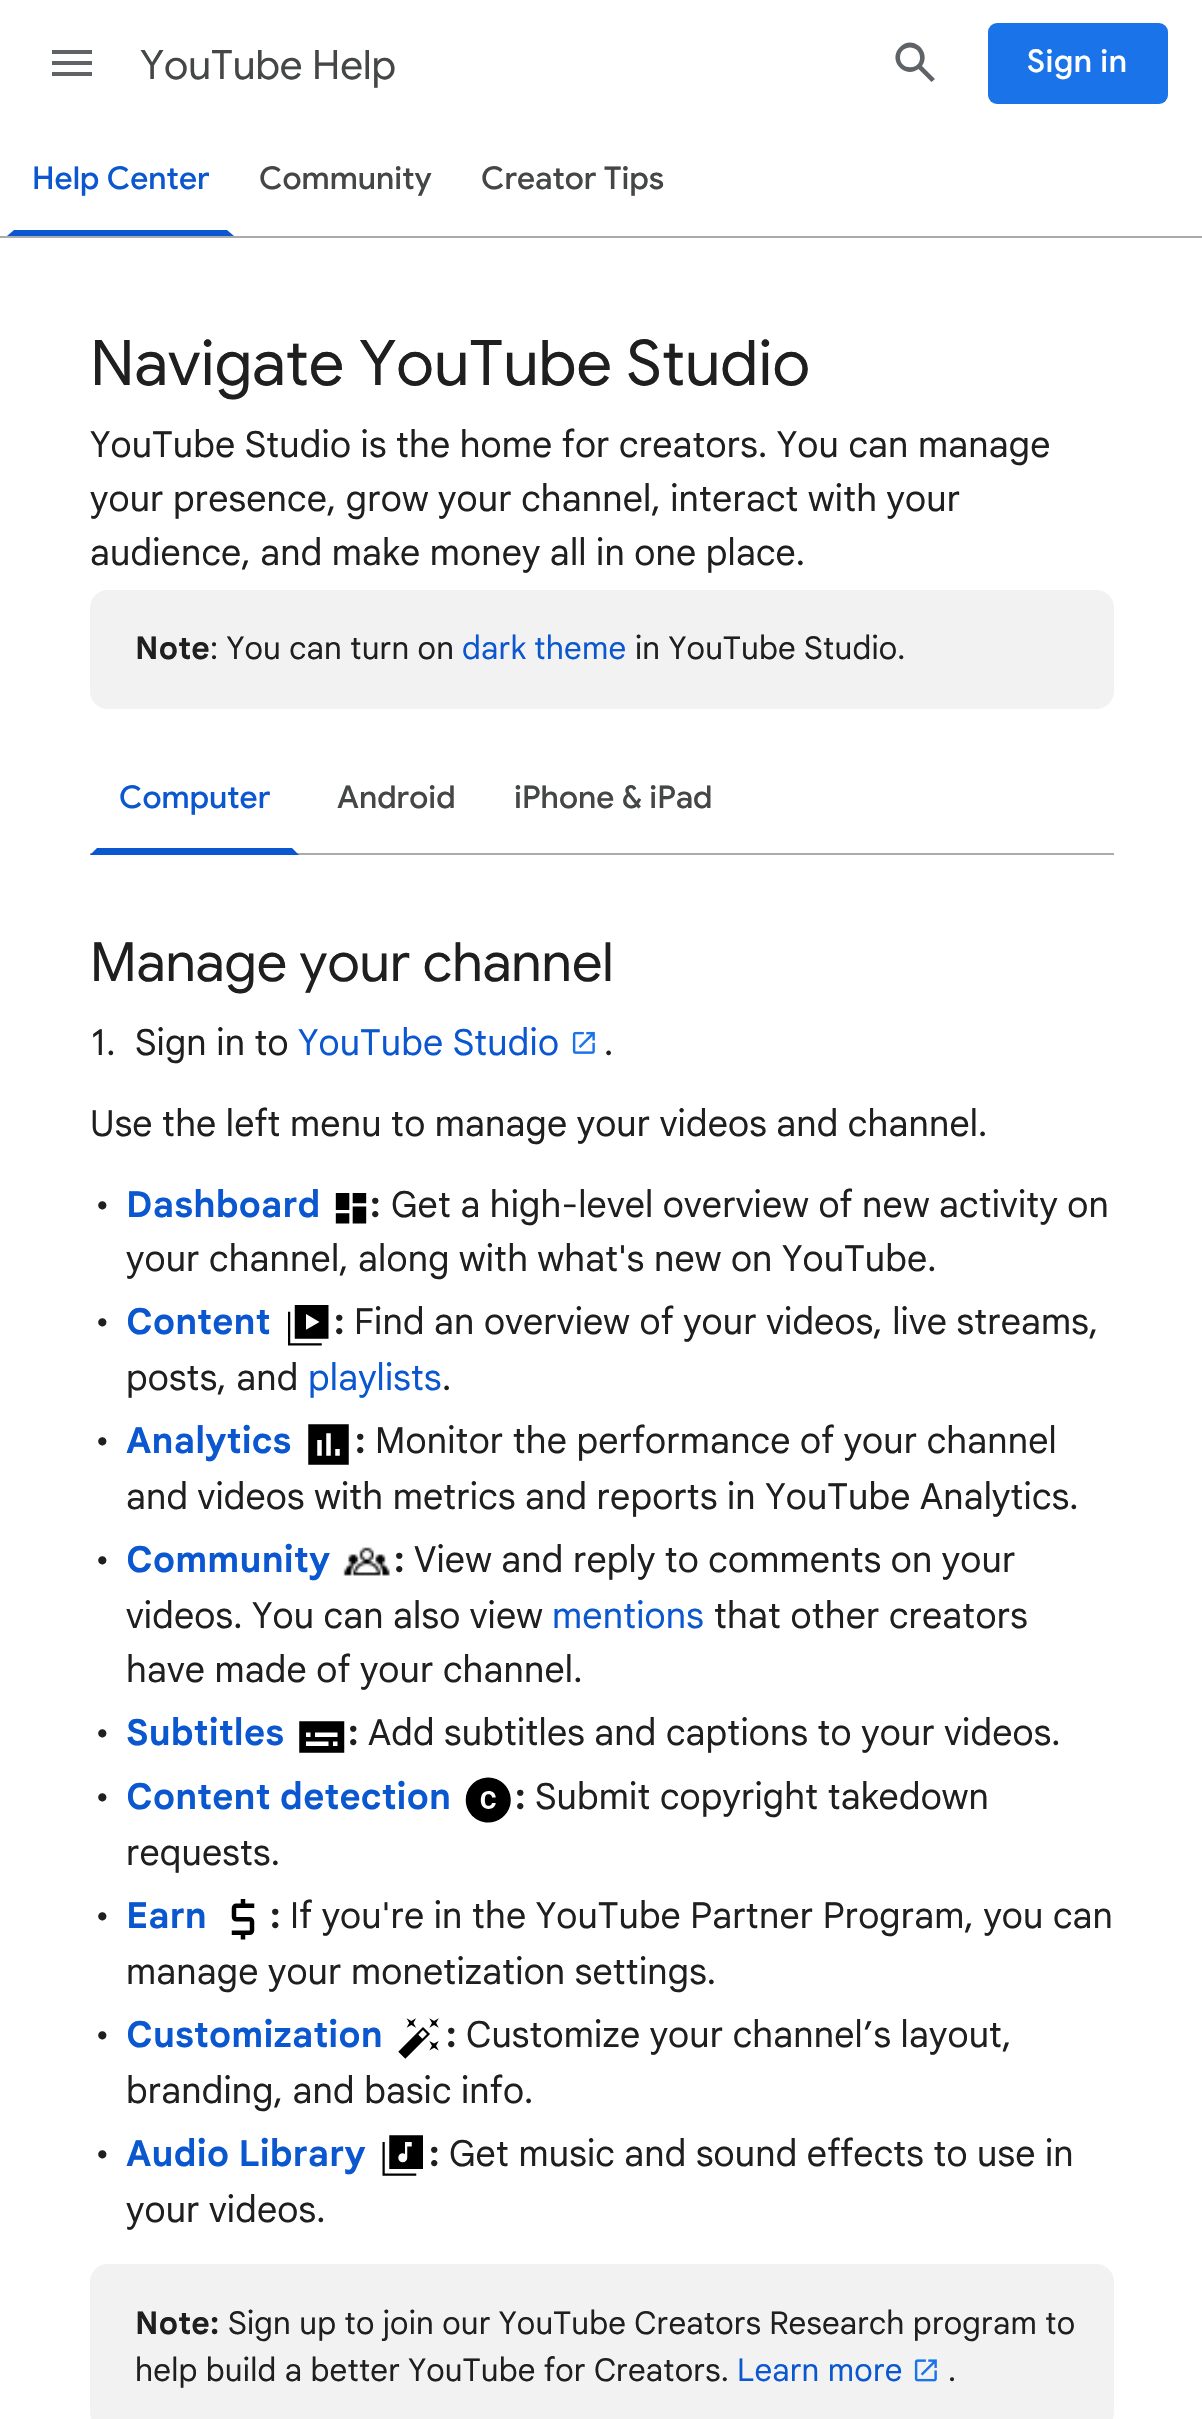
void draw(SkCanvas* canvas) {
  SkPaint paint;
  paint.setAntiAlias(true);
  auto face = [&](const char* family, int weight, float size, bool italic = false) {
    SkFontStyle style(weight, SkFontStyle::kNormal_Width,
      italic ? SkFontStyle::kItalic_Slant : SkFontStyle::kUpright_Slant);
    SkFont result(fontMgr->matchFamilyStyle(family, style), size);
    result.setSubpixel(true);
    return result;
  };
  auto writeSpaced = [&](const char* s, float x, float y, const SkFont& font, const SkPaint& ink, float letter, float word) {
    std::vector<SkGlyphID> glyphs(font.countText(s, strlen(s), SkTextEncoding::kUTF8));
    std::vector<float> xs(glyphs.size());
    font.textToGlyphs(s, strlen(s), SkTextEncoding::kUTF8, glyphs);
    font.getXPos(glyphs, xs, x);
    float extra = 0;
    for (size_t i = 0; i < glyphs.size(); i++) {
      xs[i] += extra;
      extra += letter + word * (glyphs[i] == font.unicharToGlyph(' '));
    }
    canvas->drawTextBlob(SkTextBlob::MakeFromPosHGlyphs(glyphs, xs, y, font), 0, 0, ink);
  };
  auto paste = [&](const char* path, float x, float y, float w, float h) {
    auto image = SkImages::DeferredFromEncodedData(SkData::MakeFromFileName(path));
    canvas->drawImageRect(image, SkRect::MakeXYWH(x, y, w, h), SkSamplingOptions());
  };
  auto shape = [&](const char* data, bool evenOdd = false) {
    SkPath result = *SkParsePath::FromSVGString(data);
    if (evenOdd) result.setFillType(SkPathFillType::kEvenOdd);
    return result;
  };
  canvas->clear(0xffffffff);
  paint.setColor(0xff5f6368);
  canvas->drawPath(shape("M52 76H92V72H52ZM52 65H92V61H52ZM52 50V54H92V50Z"), paint);
  canvas->drawPath(shape("M935 79L922 66C932 51.5 912.5 34 900 47C887 60 904.5 79.5 918.5 69L931.5 82ZM900 57.5C900 44 920 44 920 57.5C920.5 70.5 900 70.5 900 57.5Z"), paint);
  paint.setColor(0xff1a73e8);
  canvas->drawRoundRect(SkRect::MakeXYWH(988, 23, 180, 81), 9, 9, paint);
  paint.setColor(0xffa9acaa);
  canvas->drawRect(SkRect::MakeXYWH(0, 236, 1202, 2), paint);
  paint.setColor(0xff0b57d0);
  canvas->drawPath(shape("M234 236H7L14 230H227Z"), paint);
  paint.setColor(0xfff2f2f2);
  canvas->drawRoundRect(SkRect::MakeXYWH(90, 590, 1024, 119), 18, 18, paint);
  paint.setColor(0xffa9acaa);
  canvas->drawRect(SkRect::MakeXYWH(90, 853, 1024, 2), paint);
  paint.setColor(0xff0b57d0);
  canvas->drawPath(shape("M299 855H90L97 848H292Z"), paint);
  paste("img/1.png", 572, 1031, 23, 23);
  paste("img/2.png", 335, 1193, 32, 31);
  paste("img/3.png", 288, 1305, 41, 41);
  paste("img/4.png", 308, 1424, 41, 41);
  paste("img/5.png", 343, 1547, 47, 29);
  paste("img/6.png", 299, 1721, 46, 32);
  paste("img/7.png", 465, 1777, 46, 46);
  paste("img/8.png", 231, 1899, 24, 41);
  paste("img/9.png", 398, 2018, 41, 41);
  paste("img/10.png", 382, 2135, 41, 41);
  paint.setColor(0xfff2f2f2);
  canvas->drawRoundRect(SkRect::MakeXYWH(90, 2264, 1024, 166), 18, 18, paint);
  paste("img/11.png", 914, 2359, 23, 23);
  auto f0 = face("Google Sans", 400, 40.5f);
  paint.setColor(0xff444746);
  canvas->drawString("YouTube Help", 140, 79, f0, paint);
  auto f1 = face("Google Sans", 500, 31.5f);
  paint.setColor(0xffffffff);
  writeSpaced("Sign in", 1027, 72, f1, paint, 0.5f, 0);
  paint.setColor(0xff0b57d0);
  canvas->drawString("Help Center", 32, 189, f1, paint);
  paint.setColor(0xff444746);
  canvas->drawString("Community", 259, 189, f1, paint);
  canvas->drawString("Creator Tips", 481, 189, f1, paint);
  auto f2 = face("Google Sans", 400, 63);
  paint.setColor(0xff1f1f1f);
  canvas->drawString("Navigate YouTube Studio", 90, 385, f2, paint);
  auto f3 = face("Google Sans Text", 400, 36);
  {
    const struct { const char* s; float x, y; } items[] = {
      {"YouTube Studio is the home for creators. You can manage", 90, 457},
      {"your presence, grow your channel, interact with your", 90, 511},
      {"audience, and make money all in one place.", 90, 565},
    };
    for (auto [s, x, y] : items) {
      writeSpaced(s, x, y, f3, paint, 0.18f, 0);
    }
  }
  auto f4 = face("Google Sans Text", 700, 31.5f);
  writeSpaced("Note", 135, 659, f4, paint, 0.18f, 0);
  auto f5 = face("Google Sans Text", 400, 31.5f);
  writeSpaced(": You can turn on", 210, 659, f5, paint, 0.18f, 0);
  paint.setColor(0xff0b57d0);
  writeSpaced("dark theme", 462, 659, f5, paint, 0.18f, 0);
  paint.setColor(0xff1f1f1f);
  writeSpaced("in YouTube Studio.", 635, 659, f5, paint, 0.18f, 0);
  paint.setColor(0xff0b57d0);
  canvas->drawString("Computer", 119, 808, f1, paint);
  paint.setColor(0xff444746);
  canvas->drawString("Android", 337, 808, f1, paint);
  canvas->drawString("iPhone & iPad", 514, 808, f1, paint);
  auto f6 = face("Google Sans", 400, 54);
  paint.setColor(0xff1f1f1f);
  canvas->drawString("Manage your channel", 90, 981, f6, paint);
  writeSpaced("1.", 91, 1055, f3, paint, 0.18f, 0);
  writeSpaced("Sign in to", 135, 1055, f3, paint, 0.18f, 0);
  paint.setColor(0xff0b57d0);
  writeSpaced("YouTube Studio", 298, 1055, f3, paint, 0.18f, 0);
  paint.setColor(0xff1f1f1f);
  {
    const struct { const char* s; float x, y; } items[] = {
      {".", 604, 1055},
      {"Use the left menu to manage your videos and channel.", 90, 1136},
      {"•", 95, 1217},
    };
    for (auto [s, x, y] : items) {
      writeSpaced(s, x, y, f3, paint, 0.18f, 0);
    }
  }
  auto f7 = face("Google Sans Text", 700, 36);
  paint.setColor(0xff0b57d0);
  writeSpaced("Dashboard", 126, 1217, f7, paint, 0.18f, 0);
  paint.setColor(0xff1f1f1f);
  writeSpaced(":", 370, 1217, f7, paint, 0.18f, 0);
  {
    const struct { const char* s; float x, y; } items[] = {
      {"Get a high-level overview of new activity on", 391, 1217},
      {"your channel, along with what's new on YouTube.", 126, 1271},
      {"•", 95, 1334},
    };
    for (auto [s, x, y] : items) {
      writeSpaced(s, x, y, f3, paint, 0.18f, 0);
    }
  }
  paint.setColor(0xff0b57d0);
  writeSpaced("Content", 126, 1334, f7, paint, 0.18f, 0);
  paint.setColor(0xff1f1f1f);
  writeSpaced(":", 334, 1334, f7, paint, 0.18f, 0);
  writeSpaced("Find an overview of your videos, live streams,", 354, 1334, f3, paint, 0.18f, 0);
  writeSpaced("posts, and", 126, 1390, f3, paint, 0.18f, 0);
  paint.setColor(0xff0b57d0);
  writeSpaced("playlists", 308, 1390, f3, paint, 0.18f, 0);
  paint.setColor(0xff1f1f1f);
  writeSpaced(".", 442, 1390, f3, paint, 0.18f, 0);
  writeSpaced("•", 95, 1453, f3, paint, 0.18f, 0);
  paint.setColor(0xff0b57d0);
  writeSpaced("Analytics", 126, 1453, f7, paint, 0.18f, 0);
  paint.setColor(0xff1f1f1f);
  writeSpaced(":", 355, 1453, f7, paint, 0.18f, 0);
  {
    const struct { const char* s; float x, y; } items[] = {
      {"Monitor the performance of your channel", 375, 1453},
      {"and videos with metrics and reports in YouTube Analytics.", 126, 1509},
      {"•", 95, 1572},
    };
    for (auto [s, x, y] : items) {
      writeSpaced(s, x, y, f3, paint, 0.18f, 0);
    }
  }
  paint.setColor(0xff0b57d0);
  writeSpaced("Community", 126, 1572, f7, paint, 0.18f, 0);
  paint.setColor(0xff1f1f1f);
  writeSpaced(":", 394, 1572, f7, paint, 0.18f, 0);
  writeSpaced("View and reply to comments on your", 414, 1572, f3, paint, 0.18f, 0);
  writeSpaced("videos. You can also view", 126, 1628, f3, paint, 0.18f, 0);
  paint.setColor(0xff0b57d0);
  writeSpaced("mentions", 552, 1628, f3, paint, 0.18f, 0);
  paint.setColor(0xff1f1f1f);
  {
    const struct { const char* s; float x, y; } items[] = {
      {"that other creators", 714, 1628},
      {"have made of your channel.", 126, 1682},
      {"•", 95, 1745},
    };
    for (auto [s, x, y] : items) {
      writeSpaced(s, x, y, f3, paint, 0.18f, 0);
    }
  }
  paint.setColor(0xff0b57d0);
  writeSpaced("Subtitles", 126, 1745, f7, paint, 0.18f, 0);
  paint.setColor(0xff1f1f1f);
  writeSpaced(":", 348, 1745, f7, paint, 0.18f, 0);
  writeSpaced("Add subtitles and captions to your videos.", 368, 1745, f3, paint, 0.18f, 0);
  writeSpaced("•", 95, 1809, f3, paint, 0.18f, 0);
  paint.setColor(0xff0b57d0);
  writeSpaced("Content detection", 126, 1809, f7, paint, 0.18f, 0);
  paint.setColor(0xff1f1f1f);
  writeSpaced(":", 515, 1809, f7, paint, 0.18f, 0);
  {
    const struct { const char* s; float x, y; } items[] = {
      {"Submit copyright takedown", 535, 1809},
      {"requests.", 126, 1865},
      {"•", 95, 1928},
    };
    for (auto [s, x, y] : items) {
      writeSpaced(s, x, y, f3, paint, 0.18f, 0);
    }
  }
  paint.setColor(0xff0b57d0);
  writeSpaced("Earn", 126, 1928, f7, paint, 0.18f, 0);
  paint.setColor(0xff1f1f1f);
  writeSpaced(":", 270, 1928, f7, paint, 0.18f, 0);
  {
    const struct { const char* s; float x, y; } items[] = {
      {"If you're in the YouTube Partner Program, you can", 290, 1928},
      {"manage your monetization settings.", 126, 1984},
      {"•", 95, 2047},
    };
    for (auto [s, x, y] : items) {
      writeSpaced(s, x, y, f3, paint, 0.18f, 0);
    }
  }
  paint.setColor(0xff0b57d0);
  writeSpaced("Customization", 126, 2047, f7, paint, 0.18f, 0);
  paint.setColor(0xff1f1f1f);
  writeSpaced(":", 446, 2047, f7, paint, 0.18f, 0);
  {
    const struct { const char* s; float x, y; } items[] = {
      {"Customize your channel’s layout,", 466, 2047},
      {"branding, and basic info.", 126, 2103},
      {"•", 95, 2166},
    };
    for (auto [s, x, y] : items) {
      writeSpaced(s, x, y, f3, paint, 0.18f, 0);
    }
  }
  paint.setColor(0xff0b57d0);
  writeSpaced("Audio Library", 126, 2166, f7, paint, 0.18f, 0);
  paint.setColor(0xff1f1f1f);
  writeSpaced(":", 429, 2166, f7, paint, 0.18f, 0);
  writeSpaced("Get music and sound effects to use in", 449, 2166, f3, paint, 0.18f, 0);
  writeSpaced("your videos.", 126, 2222, f3, paint, 0.18f, 0);
  writeSpaced("Note:", 135, 2334, f4, paint, 0.18f, 0);
  writeSpaced("Sign up to join our YouTube Creators Research program to", 228, 2334, f5, paint, 0.18f, 0);
  writeSpaced("help build a better YouTube for Creators.", 135, 2381, f5, paint, 0.18f, 0);
  paint.setColor(0xff0b57d0);
  writeSpaced("Learn more", 737, 2381, f5, paint, 0.18f, 0);
  paint.setColor(0xff1f1f1f);
  writeSpaced(".", 948, 2381, f5, paint, 0.18f, 0);
}
